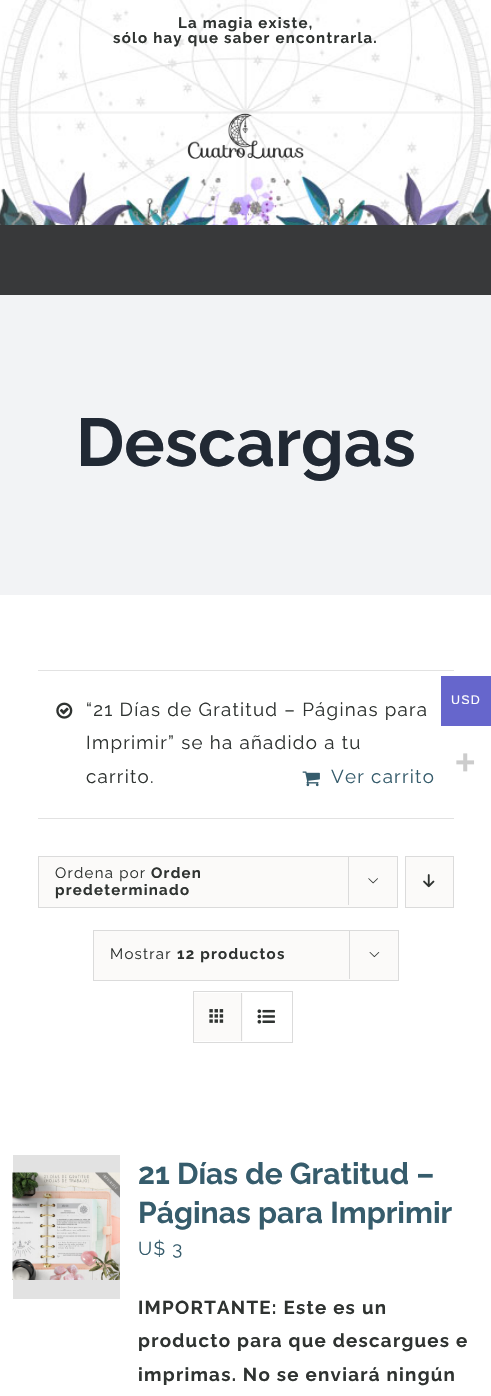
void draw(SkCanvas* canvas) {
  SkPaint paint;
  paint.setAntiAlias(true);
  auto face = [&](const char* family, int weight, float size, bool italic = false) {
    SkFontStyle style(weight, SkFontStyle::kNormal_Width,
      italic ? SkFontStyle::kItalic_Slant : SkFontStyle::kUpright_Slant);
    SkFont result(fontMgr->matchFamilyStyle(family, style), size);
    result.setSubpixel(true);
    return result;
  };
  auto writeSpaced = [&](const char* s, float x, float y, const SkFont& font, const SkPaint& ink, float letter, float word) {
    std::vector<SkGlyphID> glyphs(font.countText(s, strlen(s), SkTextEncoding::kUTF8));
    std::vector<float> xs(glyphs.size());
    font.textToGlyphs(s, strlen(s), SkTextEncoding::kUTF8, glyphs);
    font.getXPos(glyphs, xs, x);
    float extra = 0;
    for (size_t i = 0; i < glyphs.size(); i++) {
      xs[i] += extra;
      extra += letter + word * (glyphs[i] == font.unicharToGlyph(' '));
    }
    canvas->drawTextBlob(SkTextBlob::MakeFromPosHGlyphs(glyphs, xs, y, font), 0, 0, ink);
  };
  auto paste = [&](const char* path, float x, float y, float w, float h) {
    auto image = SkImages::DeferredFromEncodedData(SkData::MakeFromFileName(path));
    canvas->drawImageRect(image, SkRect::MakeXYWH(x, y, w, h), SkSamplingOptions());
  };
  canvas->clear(0xffffffff);
  paste("img/1.png", 0, 0, 491, 225);
  paste("img/2.png", 187, 113, 117, 46);
  {
    const struct { float x, y, w, h; SkColor color; } items[] = {
      {0, 225, 491, 70, 0xff38393a},
      {0, 295, 491, 300, 0xfff2f3f5},
      {38, 670, 416, 1, 0xffe2e2e2},
      {38, 818, 416, 1, 0xffe2e2e2},
    };
    for (auto [x, y, w, h, color] : items) {
      paint.setColor(color);
      canvas->drawRect(SkRect::MakeXYWH(x, y, w, h), paint);
    }
  }
  paste("img/3.png", 56, 702, 17, 17);
  paste("img/4.png", 302, 771, 18, 16);
  paint.setColor(0xfffbfaf9);
  canvas->drawRect(SkRect::MakeXYWH(38.5f, 856.5f, 359, 51), paint);
  paint.setStroke(true);
  paint.setStrokeWidth(1);
  paint.setColor(0xffdbdbdb);
  canvas->drawRect(SkRect::MakeXYWH(38.5f, 856.5f, 359, 51), paint);
  paint.setStroke(false);
  canvas->drawRect(SkRect::MakeXYWH(348, 856, 1, 49), paint);
  paste("img/5.png", 368, 878, 10, 6);
  paint.setColor(0xfffbfaf9);
  canvas->drawRect(SkRect::MakeXYWH(405.5f, 856.5f, 48, 51), paint);
  paint.setStroke(true);
  paint.setColor(0xffdbdbdb);
  canvas->drawRect(SkRect::MakeXYWH(405.5f, 856.5f, 48, 51), paint);
  paste("img/6.png", 423, 874, 12, 14);
  paint.setStroke(false);
  paint.setColor(0xfffbfaf9);
  canvas->drawRect(SkRect::MakeXYWH(93.5f, 930.5f, 305, 50), paint);
  paint.setStroke(true);
  paint.setColor(0xffdbdbdb);
  canvas->drawRect(SkRect::MakeXYWH(93.5f, 930.5f, 305, 50), paint);
  paint.setStroke(false);
  canvas->drawRect(SkRect::MakeXYWH(349, 930, 1, 49), paint);
  paste("img/7.png", 369, 952, 11, 6);
  paint.setStroke(true);
  canvas->drawRect(SkRect::MakeXYWH(193.5f, 991.5f, 99, 51), paint);
  paint.setStroke(false);
  paint.setColor(0xfffbfaf9);
  canvas->drawRect(SkRect::MakeXYWH(194, 993, 49, 48), paint);
  paint.setColor(0xffdbdbdb);
  canvas->drawRect(SkRect::MakeXYWH(241, 993, 1, 48), paint);
  paste("img/8.png", 209, 1009, 15, 14);
  paste("img/9.png", 257, 1009, 18, 15);
  paint.setColor(0xffe2e2e2);
  canvas->drawRect(SkRect::MakeXYWH(13, 1155, 107, 144), paint);
  paste("img/10.png", 12, 1172, 108, 108);
  paint.setColor(0xff6666cc);
  canvas->drawRect(SkRect::MakeXYWH(441, 676, 50, 50), paint);
  auto f0 = face("Raleway", 700, 15);
  paint.setColor(0xff2f3331);
  writeSpaced("La magia existe,", 178, 28, f0, paint, 1.25f, 0);
  writeSpaced("sólo hay que saber encontrarla.", 113, 43, f0, paint, 1.25f, 0);
  auto f1 = face("Raleway", 700, 67.5f);
  paint.setColor(0xff212934);
  canvas->drawString("Descargas", 76, 466, f1, paint);
  auto f2 = face("Raleway", 400, 18.75f);
  paint.setColor(0xff2f3331);
  {
    const struct { const char* s; float x, y; } items[] = {
      {"“21 Días de Gratitud – Páginas para", 86, 716},
      {"Imprimir” se ha añadido a tu", 86, 749},
      {"carrito.", 86, 783},
    };
    for (auto [s, x, y] : items) {
      writeSpaced(s, x, y, f2, paint, 1.25f, 0);
    }
  }
  paint.setColor(0xff365c6c);
  writeSpaced("Ver carrito", 331, 783, f2, paint, 1.25f, 0);
  auto f3 = face("Raleway", 400, 15);
  paint.setColor(0xff2f3331);
  writeSpaced("Ordena por", 55, 878, f3, paint, 1.25f, 0);
  writeSpaced("Orden", 151, 878, f0, paint, 1.25f, 0);
  writeSpaced("predeterminado", 55, 895, f0, paint, 1.25f, 0);
  writeSpaced("Mostrar", 110, 959, f3, paint, 1.25f, 0);
  writeSpaced("12 productos", 177, 959, f0, paint, 1.25f, 0);
  auto f4 = face("Raleway", 700, 30);
  paint.setColor(0xff365c6c);
  canvas->drawString("21 Días de Gratitud –", 138, 1184, f4, paint);
  canvas->drawString("Páginas para Imprimir", 138, 1223, f4, paint);
  writeSpaced("U$ 3", 138, 1255, f2, paint, 1.25f, 0);
  auto f5 = face("Raleway", 700, 18.75f);
  paint.setColor(0xff2f3331);
  {
    const struct { const char* s; float x, y; } items[] = {
      {"IMPORTANTE: Este es un", 138, 1314},
      {"producto para que descargues e", 138, 1347},
      {"imprimas. No se enviará ningún", 138, 1381},
    };
    for (auto [s, x, y] : items) {
      writeSpaced(s, x, y, f5, paint, 1.25f, 0);
    }
  }
  auto f6 = face("Liberation Sans", 400, 12.5f);
  paint.setColor(0xffffffff);
  writeSpaced("USD", 451, 704, f6, paint, 1.25f, 0);
  auto f7 = face("Liberation Sans", 700, 35);
  paint.setColor(0xffcccccc);
  writeSpaced("+", 455, 774, f7, paint, 1.25f, 0);
}
